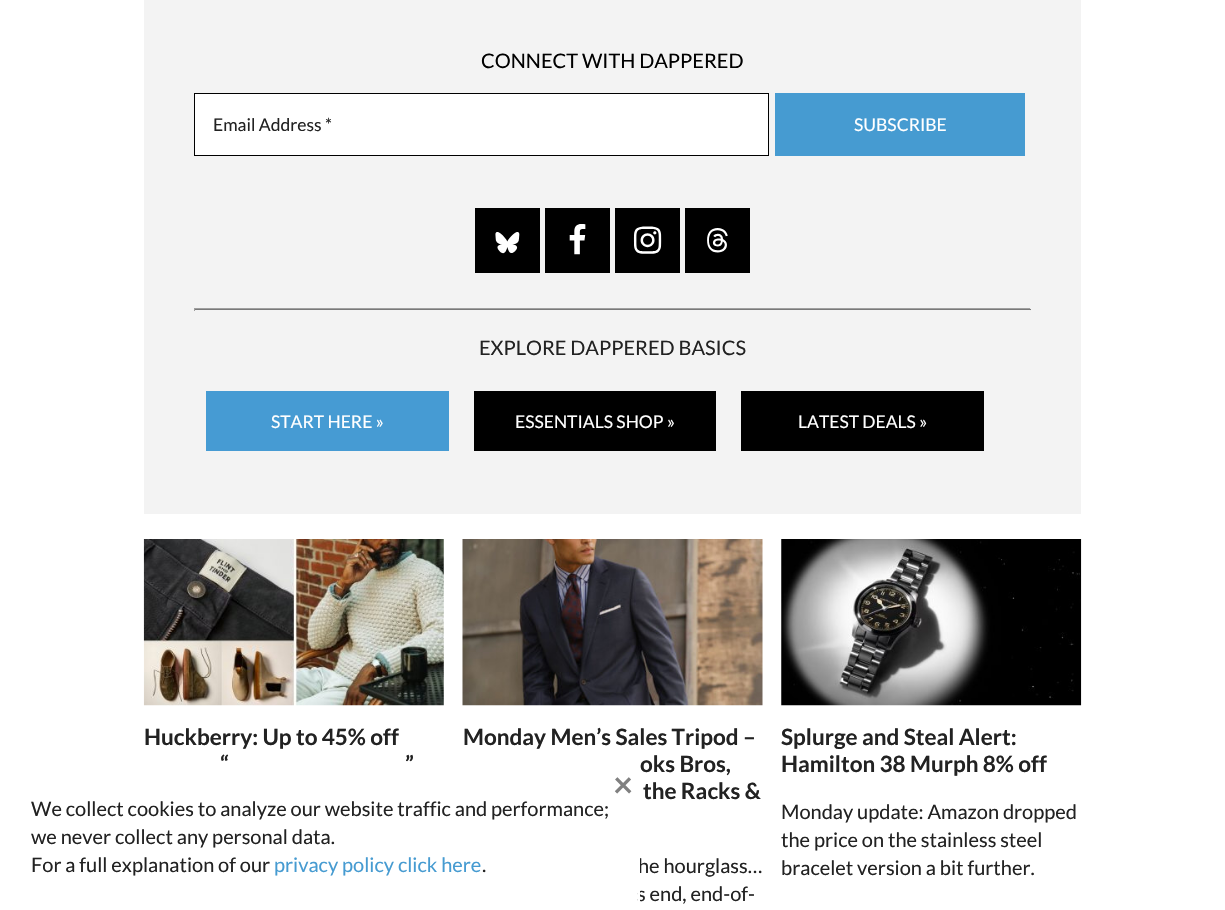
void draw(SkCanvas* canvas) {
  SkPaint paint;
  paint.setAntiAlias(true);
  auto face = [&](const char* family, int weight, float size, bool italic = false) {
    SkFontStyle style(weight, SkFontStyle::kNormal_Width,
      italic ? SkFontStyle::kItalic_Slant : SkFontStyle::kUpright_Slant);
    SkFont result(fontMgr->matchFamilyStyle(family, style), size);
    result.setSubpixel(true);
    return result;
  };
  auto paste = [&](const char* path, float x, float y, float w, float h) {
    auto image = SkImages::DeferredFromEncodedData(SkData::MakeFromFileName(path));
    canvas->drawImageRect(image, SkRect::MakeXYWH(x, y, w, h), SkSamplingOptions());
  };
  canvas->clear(0xffffffff);
  paint.setColor(0xfff3f3f3);
  canvas->drawRect(SkRect::MakeXYWH(144, 0, 937, 514), paint);
  paint.setColor(0xffffffff);
  canvas->drawRect(SkRect::MakeXYWH(194.5f, 93.5f, 574, 62), paint);
  paint.setStroke(true);
  paint.setStrokeWidth(1);
  paint.setColor(0xff000000);
  canvas->drawRect(SkRect::MakeXYWH(194.5f, 93.5f, 574, 62), paint);
  paint.setStroke(false);
  paint.setColor(0xff469bd1);
  canvas->drawRect(SkRect::MakeXYWH(775, 93, 250, 63), paint);
  paint.setColor(0xff000000);
  canvas->drawRect(SkRect::MakeXYWH(475, 208, 65, 65), paint);
  paste("img/1.png", 495, 232, 25, 22);
  canvas->drawRect(SkRect::MakeXYWH(545, 208, 65, 65), paint);
  paste("img/2.png", 569, 224, 17, 31);
  canvas->drawRect(SkRect::MakeXYWH(615, 208, 65, 65), paint);
  paste("img/3.png", 633, 226, 29, 28);
  canvas->drawRect(SkRect::MakeXYWH(685, 208, 65, 65), paint);
  paste("img/4.png", 707, 228, 21, 25);
  {
    const struct { float x, y, w, h; SkColor color; } items[] = {
      {194, 308, 837, 1, 0xff9f9f9f},
      {1030, 308, 1, 3, 0xffeeeeee},
      {194, 309, 837, 1, 0xff797979},
      {194, 308, 1, 3, 0xff9f9f9f},
      {206, 391, 243, 60, 0xff469bd3},
      {474, 391, 242, 60, 0xff000000},
      {741, 391, 243, 60, 0xff000000},
    };
    for (auto [x, y, w, h, color] : items) {
      paint.setColor(color);
      canvas->drawRect(SkRect::MakeXYWH(x, y, w, h), paint);
    }
  }
  paste("img/5.png", 143, 539, 301, 167);
  paste("img/6.png", 462, 539, 301, 167);
  paste("img/7.png", 781, 539, 301, 167);
  auto f0 = face("Lato", 400, 20);
  canvas->drawString("CONNECT WITH DAPPERED", 481, 68, f0, paint);
  auto f1 = face("Lato", 400, 17.5f);
  paint.setColor(0xff222222);
  canvas->drawString("Email Address *", 213, 131, f1, paint);
  paint.setColor(0xffffffff);
  canvas->drawString("SUBSCRIBE", 854, 131, f1, paint);
  paint.setColor(0xff222222);
  canvas->drawString("EXPLORE DAPPERED BASICS", 479, 355, f0, paint);
  paint.setColor(0xffffffff);
  {
    const struct { const char* s; float x, y; } items[] = {
      {"START HERE »", 271, 428},
      {"ESSENTIALS SHOP »", 515, 428},
      {"LATEST DEALS »", 798, 428},
    };
    for (auto [s, x, y] : items) {
      canvas->drawString(s, x, y, f1, paint);
    }
  }
  auto f2 = face("Lato", 700, 22.5f);
  paint.setColor(0xff222222);
  {
    const struct { const char* s; float x, y; } items[] = {
      {"Huckberry: Up to 45% off", 144, 745},
      {"“", 220, 772},
      {"”", 405, 772},
      {"Monday Men’s Sales Tripod –", 463, 745},
      {"oks Bros,", 640, 772},
      {"the Racks &", 643, 799},
    };
    for (auto [s, x, y] : items) {
      canvas->drawString(s, x, y, f2, paint);
    }
  }
  canvas->drawString("he hourglass…", 638, 873, f0, paint);
  canvas->drawString("s end, end-of-", 637, 901, f0, paint);
  canvas->drawString("Splurge and Steal Alert:", 781, 745, f2, paint);
  canvas->drawString("Hamilton 38 Murph 8% off", 781, 772, f2, paint);
  {
    const struct { const char* s; float x, y; } items[] = {
      {"Monday update: Amazon dropped", 781, 819},
      {"the price on the stainless steel", 781, 847},
      {"bracelet version a bit further.", 781, 875},
    };
    for (auto [s, x, y] : items) {
      canvas->drawString(s, x, y, f0, paint);
    }
  }
  paint.setColor(0xffffffff);
  canvas->drawRect(SkRect::MakeXYWH(638, 858, 2, 43), paint);
  auto f3 = face("Lato", 700, 35);
  paint.setColor(0xff808080);
  canvas->drawString("×", 613, 797, f3, paint);
  paint.setColor(0xff222222);
  {
    const struct { const char* s; float x, y; } items[] = {
      {"We collect cookies to analyze our website traffic and performance;", 31, 816},
      {"we never collect any personal data.", 31, 844},
      {"For a full explanation of our", 31, 872},
    };
    for (auto [s, x, y] : items) {
      canvas->drawString(s, x, y, f0, paint);
    }
  }
  paint.setColor(0xff469bd1);
  canvas->drawString("privacy policy click here", 274, 872, f0, paint);
  paint.setColor(0xff222222);
  canvas->drawString(".", 482, 872, f0, paint);
}
